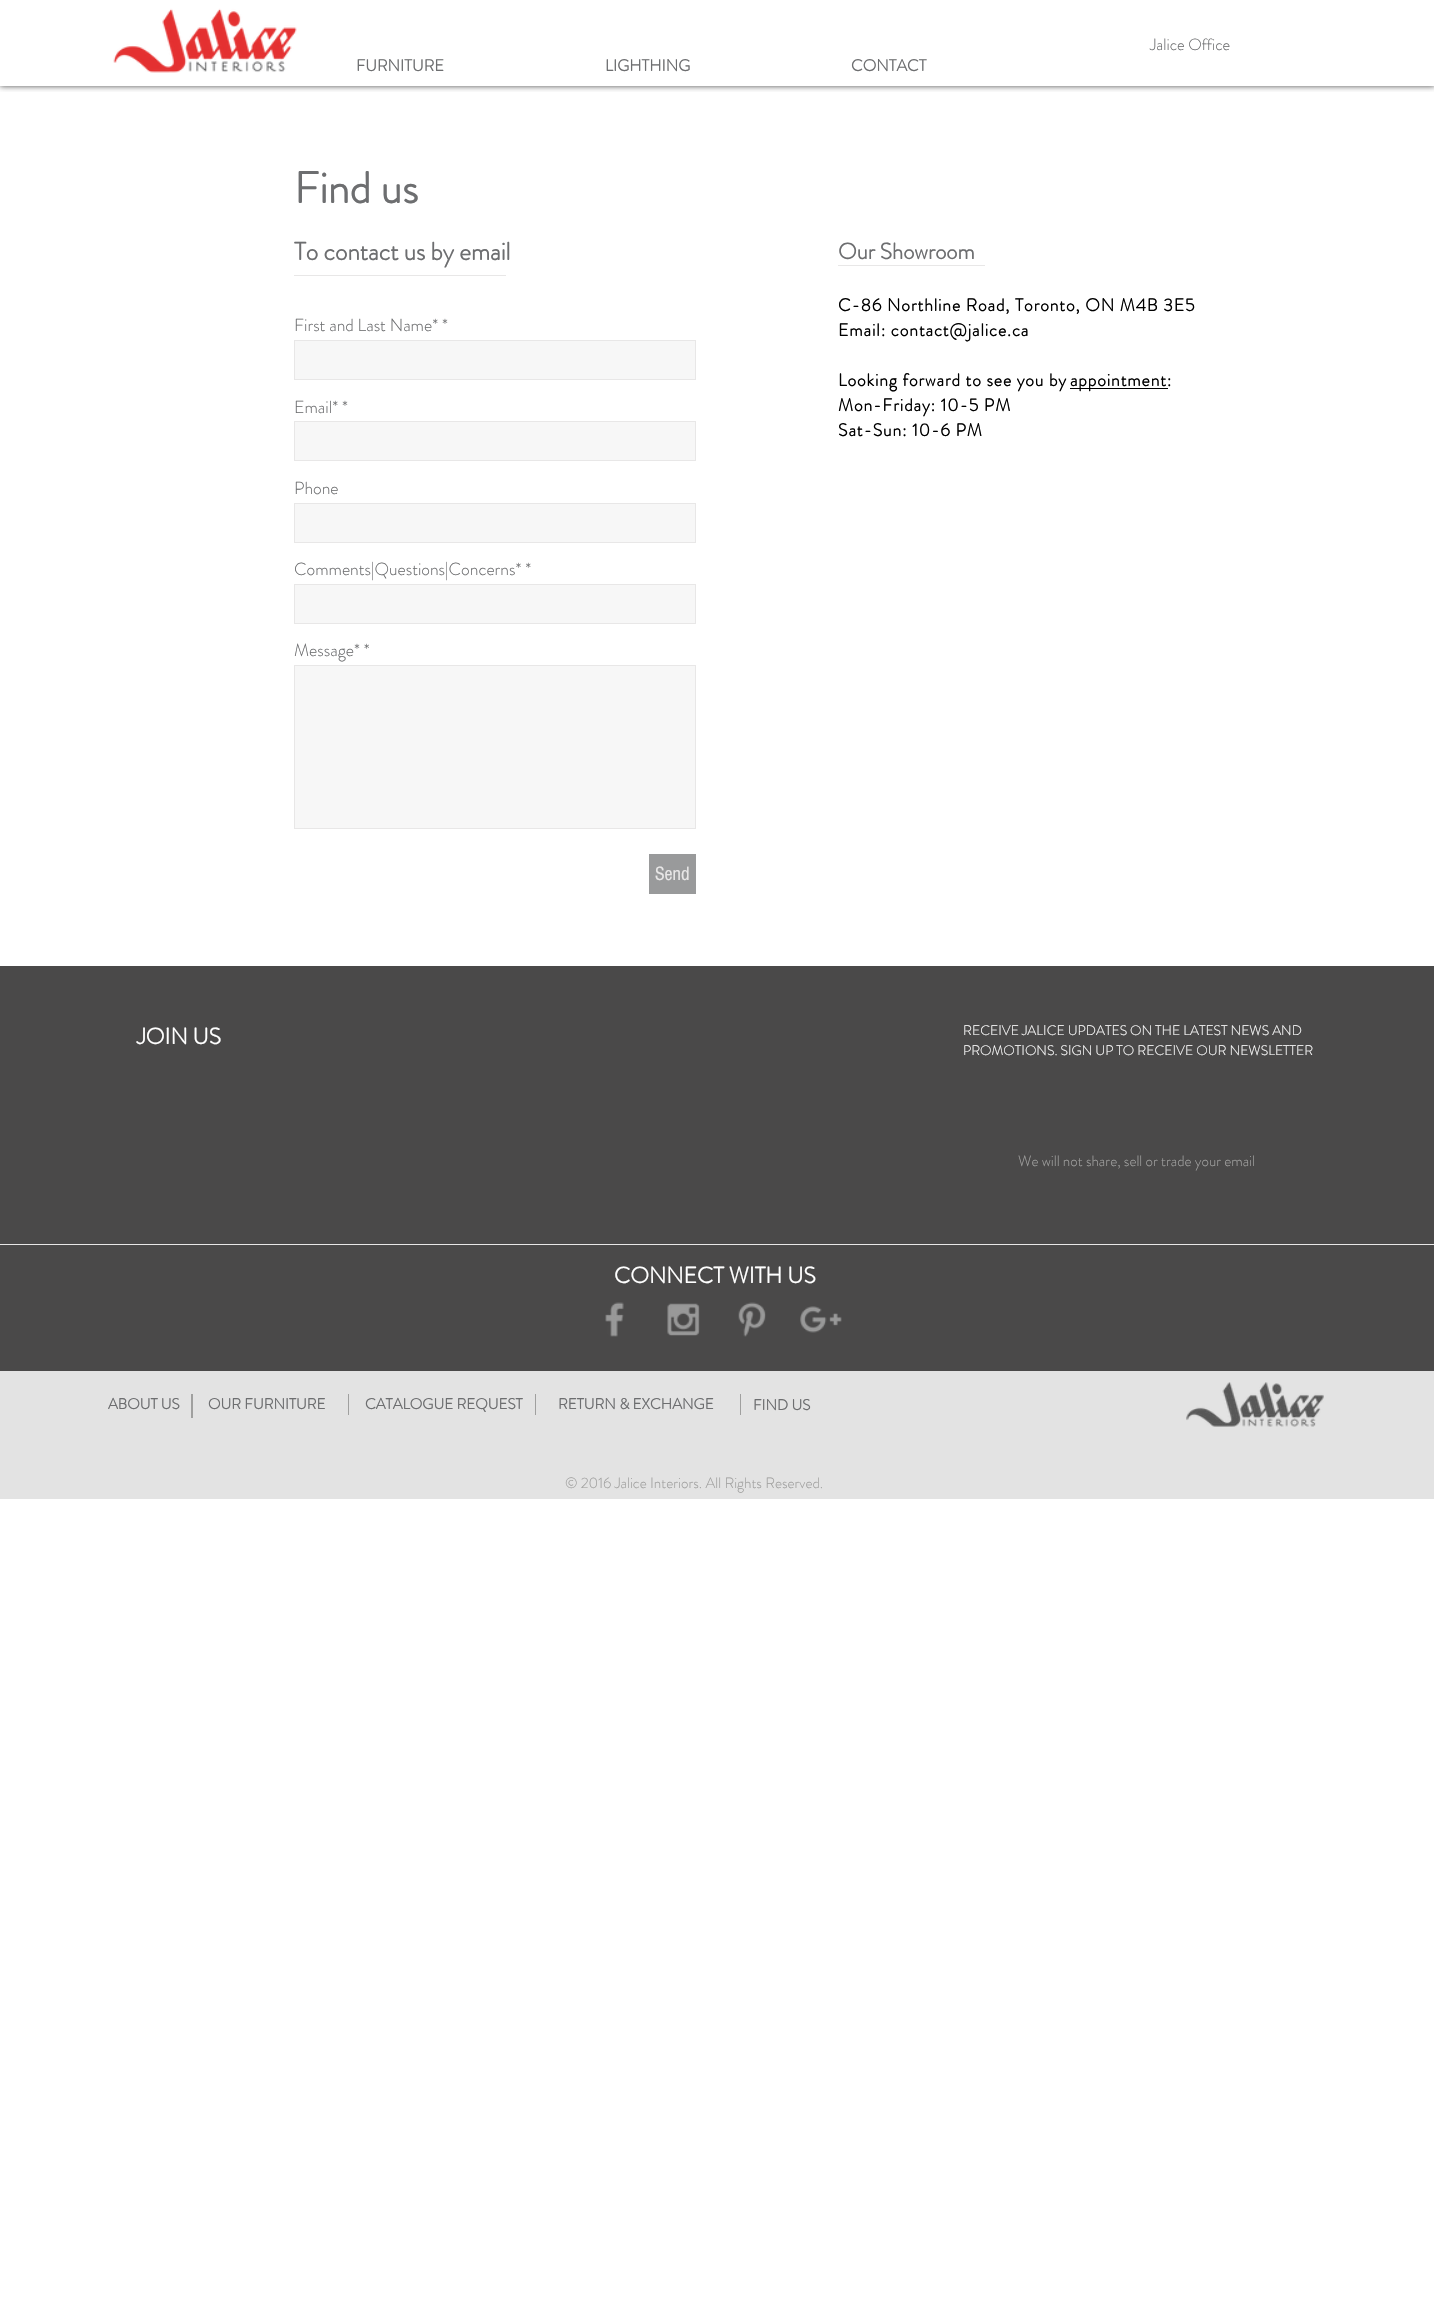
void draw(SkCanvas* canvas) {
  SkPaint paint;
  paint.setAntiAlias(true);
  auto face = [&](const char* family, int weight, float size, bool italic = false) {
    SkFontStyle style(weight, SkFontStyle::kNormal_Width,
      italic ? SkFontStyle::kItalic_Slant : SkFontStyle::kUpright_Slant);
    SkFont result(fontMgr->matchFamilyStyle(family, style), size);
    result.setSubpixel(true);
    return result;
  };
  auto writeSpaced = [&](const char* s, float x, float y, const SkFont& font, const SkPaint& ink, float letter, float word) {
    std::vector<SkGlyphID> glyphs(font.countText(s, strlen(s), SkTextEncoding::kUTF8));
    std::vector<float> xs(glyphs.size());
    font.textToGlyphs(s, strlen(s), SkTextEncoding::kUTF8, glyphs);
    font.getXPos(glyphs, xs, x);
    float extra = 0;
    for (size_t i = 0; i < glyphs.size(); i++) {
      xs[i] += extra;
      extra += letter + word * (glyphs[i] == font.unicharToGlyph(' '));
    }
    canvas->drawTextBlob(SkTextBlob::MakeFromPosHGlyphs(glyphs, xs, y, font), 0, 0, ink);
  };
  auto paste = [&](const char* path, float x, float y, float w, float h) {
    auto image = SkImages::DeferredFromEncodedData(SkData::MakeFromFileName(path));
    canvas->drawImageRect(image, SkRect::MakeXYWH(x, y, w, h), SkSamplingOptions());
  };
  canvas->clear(0xffffffff);
  canvas->save();
  canvas->clipRect(SkRect::MakeXYWH(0, 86, 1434, 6));
  paint.setColor(0xb3000000);
  paint.setMaskFilter(SkMaskFilter::MakeBlur(kNormal_SkBlurStyle, 3));
  canvas->drawRect(SkRect::MakeXYWH(0, 0, 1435, 86), paint);
  paint.setMaskFilter(nullptr);
  canvas->restore();
  paste("img/1.png", 113, 8, 184, 65);
  paint.setColor(0xffe8e7e7);
  canvas->drawRect(SkRect::MakeXYWH(838, 265, 147, 1), paint);
  canvas->drawRect(SkRect::MakeXYWH(294, 275, 212, 1), paint);
  paint.setColor(0xfff7f7f7);
  canvas->drawRect(SkRect::MakeXYWH(294.5f, 340.5f, 401, 39), paint);
  paint.setStroke(true);
  paint.setStrokeWidth(1);
  paint.setColor(0xffe8e7e7);
  canvas->drawRect(SkRect::MakeXYWH(294.5f, 340.5f, 401, 39), paint);
  paint.setStroke(false);
  paint.setColor(0xfff7f7f7);
  canvas->drawRect(SkRect::MakeXYWH(294.5f, 421.5f, 401, 39), paint);
  paint.setStroke(true);
  paint.setColor(0xffe8e7e7);
  canvas->drawRect(SkRect::MakeXYWH(294.5f, 421.5f, 401, 39), paint);
  paint.setStroke(false);
  paint.setColor(0xfff7f7f7);
  canvas->drawRect(SkRect::MakeXYWH(294.5f, 503.5f, 401, 39), paint);
  paint.setStroke(true);
  paint.setColor(0xffe8e7e7);
  canvas->drawRect(SkRect::MakeXYWH(294.5f, 503.5f, 401, 39), paint);
  paint.setStroke(false);
  paint.setColor(0xfff7f7f7);
  canvas->drawRect(SkRect::MakeXYWH(294.5f, 584.5f, 401, 39), paint);
  paint.setStroke(true);
  paint.setColor(0xffe8e7e7);
  canvas->drawRect(SkRect::MakeXYWH(294.5f, 584.5f, 401, 39), paint);
  paint.setStroke(false);
  paint.setColor(0xfff7f7f7);
  canvas->drawRect(SkRect::MakeXYWH(294.5f, 665.5f, 401, 163), paint);
  paint.setStroke(true);
  paint.setColor(0xffe8e7e7);
  canvas->drawRect(SkRect::MakeXYWH(294.5f, 665.5f, 401, 163), paint);
  paint.setStroke(false);
  {
    const struct { float x, y, w, h; SkColor color; } items[] = {
      {649, 854, 47, 40, 0xff999a9b},
      {1070, 388, 98, 1, 0xff000000},
      {0, 966, 1434, 405, 0xff4a4949},
      {0, 1244, 1434, 1, 0xffe8e7e7},
    };
    for (auto [x, y, w, h, color] : items) {
      paint.setColor(color);
      canvas->drawRect(SkRect::MakeXYWH(x, y, w, h), paint);
    }
  }
  paste("img/2.png", 605, 1302, 19, 35);
  paste("img/3.png", 667, 1303, 33, 33);
  paste("img/4.png", 738, 1302, 28, 35);
  paste("img/5.png", 800, 1306, 42, 27);
  {
    const struct { float x, y, w, h; SkColor color; } items[] = {
      {0, 1371, 1434, 128, 0xffe3e3e3},
      {191, 1394, 2, 24, 0xffa0a09f},
      {348, 1394, 1, 21, 0xffa0a09f},
      {535, 1394, 1, 21, 0xffa0a09f},
      {740, 1394, 1, 21, 0xffa0a09f},
    };
    for (auto [x, y, w, h, color] : items) {
      paint.setColor(color);
      canvas->drawRect(SkRect::MakeXYWH(x, y, w, h), paint);
    }
  }
  paste("img/6.png", 1186, 1382, 138, 45);
  auto f0 = face("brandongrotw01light", 300, 16.25f);
  paint.setColor(0xff6d6e70);
  canvas->drawString("Jalice Office", 1150, 50, f0, paint);
  auto f1 = face("brandongrotw01light", 700, 16.25f);
  {
    const struct { const char* s; float x, y; } items[] = {
      {"FURNITURE", 356, 71},
      {"LIGHTHING", 605, 71},
      {"CONTACT", 851, 71},
    };
    for (auto [s, x, y] : items) {
      canvas->drawString(s, x, y, f1, paint);
    }
  }
  auto f2 = face("brandongrotw01light", 700, 44);
  canvas->drawString("Find us", 294, 203, f2, paint);
  auto f3 = face("brandongrotw01light", 700, 25);
  canvas->drawString("To contact us by email", 294, 260, f3, paint);
  auto f4 = face("brandongrotw01light", 700, 22.5f);
  canvas->drawString("Our Showroom", 838, 259, f4, paint);
  auto f5 = face("brandongrotw01light", 300, 17.5f);
  {
    const struct { const char* s; float x, y; } items[] = {
      {"First and Last Name* *", 294, 331},
      {"Email* *", 294, 413},
      {"Phone", 294, 494},
      {"Comments|Questions|Concerns* *", 294, 575},
      {"Message* *", 294, 656},
    };
    for (auto [s, x, y] : items) {
      canvas->drawString(s, x, y, f5, paint);
    }
  }
  auto f6 = face("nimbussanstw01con", 400, 20);
  paint.setColor(0xffe8e7e7);
  canvas->drawString("Send", 655, 880, f6, paint);
  auto f7 = face("brandongrotw01light", 700, 17.5f);
  paint.setColor(0xff000000);
  {
    const struct { const char* s; float x, y; } items[] = {
      {"C-86 Northline Road, Toronto, ON M4B 3E5", 838, 311},
      {"Email: contact@jalice.ca", 838, 336},
      {"Looking forward to see you by", 838, 386},
      {"appointment:", 1070, 386},
      {"Mon-Friday: 10-5 PM", 838, 411},
      {"Sat-Sun: 10-6 PM", 838, 436},
    };
    for (auto [s, x, y] : items) {
      writeSpaced(s, x, y, f7, paint, 0.9f, 0);
    }
  }
  paint.setColor(0xffffffff);
  canvas->drawString("JOIN US", 137, 1044, f4, paint);
  auto f8 = face("brandongrotw01light", 300, 13.75f);
  canvas->drawString("RECEIVE JALICE UPDATES ON THE LATEST NEWS AND", 963, 1035, f8, paint);
  canvas->drawString("PROMOTIONS. SIGN UP TO RECEIVE OUR NEWSLETTER", 963, 1055, f8, paint);
  auto f9 = face("brandongrotw01light", 300, 15);
  paint.setColor(0xffa0a09f);
  canvas->drawString("We will not share, sell or trade your email", 1018, 1166, f9, paint);
  paint.setColor(0xffffffff);
  canvas->drawString("CONNECT WITH US", 614, 1283, f4, paint);
  auto f10 = face("brandongrotw01light", 700, 15);
  paint.setColor(0xff6d6e70);
  {
    const struct { const char* s; float x, y; } items[] = {
      {"ABOUT US", 108, 1409},
      {"OUR FURNITURE", 208, 1409},
      {"CATALOGUE REQUEST", 365, 1409},
      {"RETURN & EXCHANGE", 558, 1409},
      {"FIND US", 753, 1410},
    };
    for (auto [s, x, y] : items) {
      canvas->drawString(s, x, y, f10, paint);
    }
  }
  paint.setColor(0xffa0a09f);
  canvas->drawString("© 2016 Jalice Interiors. All Rights Reserved.", 565, 1488, f9, paint);
}
